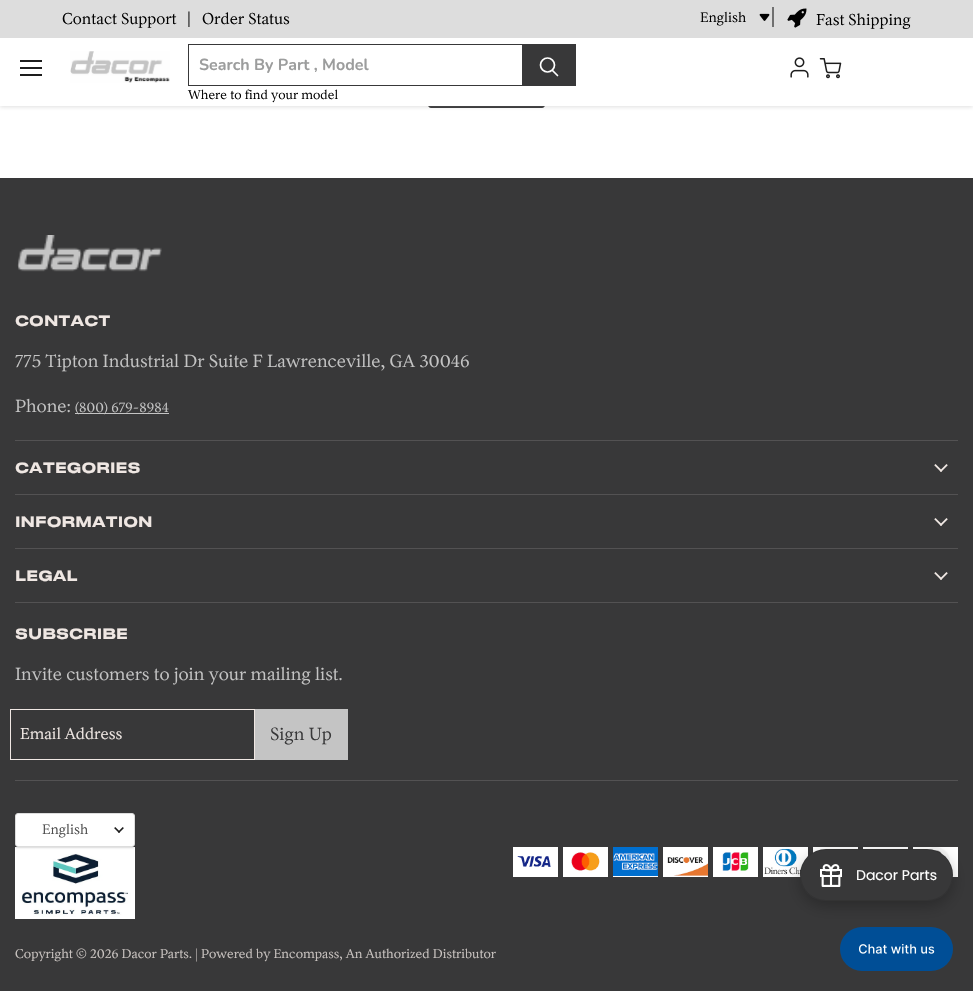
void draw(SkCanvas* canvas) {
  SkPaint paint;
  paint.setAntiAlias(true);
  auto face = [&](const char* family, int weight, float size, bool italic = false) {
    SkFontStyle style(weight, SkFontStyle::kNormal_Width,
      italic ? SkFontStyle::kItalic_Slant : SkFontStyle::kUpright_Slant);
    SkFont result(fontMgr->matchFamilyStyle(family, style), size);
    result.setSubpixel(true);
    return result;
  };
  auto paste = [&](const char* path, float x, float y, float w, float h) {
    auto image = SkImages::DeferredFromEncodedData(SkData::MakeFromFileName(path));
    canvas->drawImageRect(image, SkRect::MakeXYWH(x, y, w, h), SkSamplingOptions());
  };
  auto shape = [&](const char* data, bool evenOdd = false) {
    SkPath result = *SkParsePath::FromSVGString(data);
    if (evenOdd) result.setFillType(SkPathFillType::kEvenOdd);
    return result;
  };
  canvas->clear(0xffffffff);
  paint.setColor(0xff383839);
  canvas->drawRoundRect(SkRect::MakeXYWH(428.5f, 73.5f, 116, 34), 2.5f, 2.5f, paint);
  paint.setStroke(true);
  paint.setStrokeWidth(1);
  canvas->drawRoundRect(SkRect::MakeXYWH(428.5f, 73.5f, 116, 34), 2.5f, 2.5f, paint);
  paint.setStroke(false);
  paint.setColor(0x40808080);
  paint.setMaskFilter(SkMaskFilter::MakeBlur(kNormal_SkBlurStyle, 2));
  canvas->drawRect(SkRect::MakeXYWH(0, 36, 973, 71), paint);
  paint.setMaskFilter(nullptr);
  paint.setColor(0xffdddddd);
  canvas->drawRect(SkRect::MakeXYWH(0, 0, 973, 38), paint);
  paint.setColor(0xff707070);
  canvas->drawRect(SkRect::MakeXYWH(772, 7, 2, 20), paint);
  paste("img/1.png", 787, 8, 20, 20);
  paste("img/2.png", 759, 13, 11, 8);
  {
    const struct { float x, y, w, h; SkColor color; } items[] = {
      {0, 38, 973, 68, 0xffffffff},
      {20, 60, 22, 2, 0xff1d1d1d},
      {20, 67, 22, 2, 0xff1d1d1d},
      {20, 74, 22, 2, 0xff1d1d1d},
    };
    for (auto [x, y, w, h, color] : items) {
      paint.setColor(color);
      canvas->drawRect(SkRect::MakeXYWH(x, y, w, h), paint);
    }
  }
  paste("img/3.png", 70, 51, 100, 32);
  {
    const struct { float x, y, w, h; SkColor color; } items[] = {
      {188, 44, 334, 1, 0xff383839},
      {188, 85, 334, 1, 0xff383839},
      {188, 44, 1, 42, 0xff383839},
      {522, 44, 54, 42, 0xff383839},
    };
    for (auto [x, y, w, h, color] : items) {
      paint.setColor(color);
      canvas->drawRect(SkRect::MakeXYWH(x, y, w, h), paint);
    }
  }
  paint.setStroke(true);
  paint.setStrokeWidth(1.7f);
  paint.setStrokeCap(SkPaint::kRound_Cap);
  paint.setColor(0xffffffff);
  canvas->drawPath(shape("M557.5 75.5L552.5 70.5"), paint);
  paint.setStrokeCap(SkPaint::kButt_Cap);
  canvas->drawCircle(547.5f, 65, 7, paint);
  paste("img/4.png", 790, 57, 19, 21);
  paste("img/5.png", 819, 58, 23, 21);
  paint.setStroke(false);
  paint.setColor(0xff383839);
  canvas->drawRect(SkRect::MakeXYWH(0, 178, 973, 813), paint);
  paint.setColor(0xff535253);
  canvas->drawRect(SkRect::MakeXYWH(15, 440, 943, 1), paint);
  paste("img/6.png", 17, 235, 145, 37);
  paint.setColor(0xffc4c4c4);
  canvas->drawRect(SkRect::MakeXYWH(75, 413, 94, 1), paint);
  paint.setColor(0xff535253);
  canvas->drawRect(SkRect::MakeXYWH(15, 494, 943, 1), paint);
  paste("img/7.png", 934, 464, 14, 8);
  canvas->drawRect(SkRect::MakeXYWH(15, 548, 943, 1), paint);
  paste("img/7.png", 934, 518, 14, 8);
  canvas->drawRect(SkRect::MakeXYWH(15, 602, 943, 1), paint);
  paste("img/7.png", 934, 572, 14, 8);
  canvas->drawRect(SkRect::MakeXYWH(15, 780, 943, 1), paint);
  paint.setStroke(true);
  paint.setStrokeWidth(1);
  paint.setColor(0xffefe7e3);
  canvas->drawRect(SkRect::MakeXYWH(10.5f, 709.5f, 244, 50), paint);
  paint.setStroke(false);
  paint.setColor(0xffc4c4c4);
  canvas->drawRect(SkRect::MakeXYWH(255, 709, 93, 51), paint);
  paste("img/9.png", 15, 847, 120, 72);
  paint.setColor(0x26000000);
  paint.setMaskFilter(SkMaskFilter::MakeBlur(kNormal_SkBlurStyle, 1));
  canvas->drawRoundRect(SkRect::MakeXYWH(15, 814, 120, 34), 3, 3, paint);
  paint.setMaskFilter(nullptr);
  paint.setColor(0xffffffff);
  canvas->drawRoundRect(SkRect::MakeXYWH(15.5f, 813.5f, 119, 33), 2.5f, 2.5f, paint);
  paint.setStroke(true);
  paint.setColor(0xffdddddd);
  canvas->drawRoundRect(SkRect::MakeXYWH(15.5f, 813.5f, 119, 33), 2.5f, 2.5f, paint);
  paste("img/8.png", 114, 827, 10, 6);
  paint.setStroke(false);
  paint.setColor(0xffffffff);
  canvas->drawRect(SkRect::MakeXYWH(513, 847, 45, 30), paint);
  paste("img/10.png", 517, 856, 34, 11);
  canvas->drawRect(SkRect::MakeXYWH(563, 847, 45, 30), paint);
  paste("img/11.png", 571, 852, 29, 19);
  canvas->drawRect(SkRect::MakeXYWH(613, 876, 45, 1), paint);
  paste("img/12.png", 613, 847, 45, 29);
  canvas->drawRect(SkRect::MakeXYWH(663, 847, 45, 30), paint);
  paste("img/13.png", 667, 857, 41, 19);
  canvas->drawRect(SkRect::MakeXYWH(713, 847, 45, 30), paint);
  paste("img/14.png", 722, 852, 27, 19);
  canvas->drawRect(SkRect::MakeXYWH(763, 847, 45, 30), paint);
  paste("img/15.png", 764, 848, 42, 27);
  {
    const struct { float x, y, w, h; SkColor color; } items[] = {
      {813, 847, 45, 6, 0xffffffff},
      {863, 847, 45, 2, 0xffffffff},
      {913, 847, 45, 30, 0xffffffff},
    };
    for (auto [x, y, w, h, color] : items) {
      paint.setColor(color);
      canvas->drawRect(SkRect::MakeXYWH(x, y, w, h), paint);
    }
  }
  paste("img/16.png", 927, 847, 23, 16);
  paint.setColor(0xff004e96);
  canvas->drawRoundRect(SkRect::MakeXYWH(840, 927, 113, 44), 22, 22, paint);
  paint.setColor(0x40000000);
  paint.setMaskFilter(SkMaskFilter::MakeBlur(kNormal_SkBlurStyle, 7.5f));
  canvas->drawRoundRect(SkRect::MakeXYWH(800, 854, 153, 52), 26, 26, paint);
  paint.setMaskFilter(nullptr);
  paint.setColor(0xff383839);
  canvas->drawRoundRect(SkRect::MakeXYWH(800, 849, 153, 52), 26, 26, paint);
  paint.setStroke(true);
  paint.setColor(0x1a000000);
  canvas->drawRoundRect(SkRect::MakeXYWH(800.5f, 849.5f, 152, 51), 25.5f, 25.5f, paint);
  paste("img/17.png", 820, 864, 22, 23);
  paste("img/18.png", 859, 944, 76, 10);
  auto f0 = face("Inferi", 400, 16);
  paint.setStroke(false);
  paint.setColor(0xff000000);
  canvas->drawString("Contact Support", 62, 24, f0, paint);
  auto f1 = face("Inferi", 700, 15);
  paint.setColor(0xff1d1d1d);
  canvas->drawString("|", 187, 23, f1, paint);
  paint.setColor(0xff000000);
  canvas->drawString("Order Status", 202, 24, f0, paint);
  canvas->drawString("Fast Shipping", 816, 25, f0, paint);
  auto f2 = face("Inferi", 400, 14);
  canvas->drawString("English", 700, 22, f2, paint);
  auto f3 = face("Nunito", 700, 16);
  paint.setColor(0xff9c9d9d);
  canvas->drawString("Search By Part , Model", 199, 70, f3, paint);
  auto f4 = face("Inferi", 400, 13);
  paint.setColor(0xff000000);
  canvas->drawString("Where to find your model", 188, 99, f4, paint);
  auto f5 = face("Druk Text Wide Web", 500, 14);
  paint.setColor(0xffefe7e3);
  canvas->drawString("CONTACT", 15, 326, f5, paint);
  auto f6 = face("Inferi", 400, 18);
  paint.setColor(0xffc4c4c4);
  canvas->drawString("775 Tipton Industrial Dr Suite F Lawrenceville, GA 30046", 15, 367, f6, paint);
  canvas->drawString("Phone:", 15, 412, f6, paint);
  canvas->drawString("(800) 679-8984", 75, 412, f2, paint);
  paint.setColor(0xffefe7e3);
  {
    const struct { const char* s; float x, y; } items[] = {
      {"CATEGORIES", 15, 473},
      {"INFORMATION", 15, 527},
      {"LEGAL", 15, 581},
      {"SUBSCRIBE", 15, 639},
    };
    for (auto [s, x, y] : items) {
      canvas->drawString(s, x, y, f5, paint);
    }
  }
  paint.setColor(0xffc4c4c4);
  canvas->drawString("Invite customers to join your mailing list.", 15, 680, f6, paint);
  paint.setColor(0xffefe7e3);
  canvas->drawString("Email Address", 20, 739, f0, paint);
  paint.setColor(0xff383839);
  canvas->drawString("Sign Up", 270, 740, f6, paint);
  paint.setColor(0xff4d4d4d);
  canvas->drawString("English", 42, 834, f2, paint);
  paint.setColor(0xffcac4c1);
  canvas->drawString("Copyright © 2026 Dacor Parts. | Powered by Encompass, An Authorized Distributor", 15, 958, f4, paint);
  auto f7 = face("Poppins", 400, 14);
  paint.setColor(0xffffffff);
  canvas->drawString("Dacor Parts", 856, 880, f7, paint);
}
